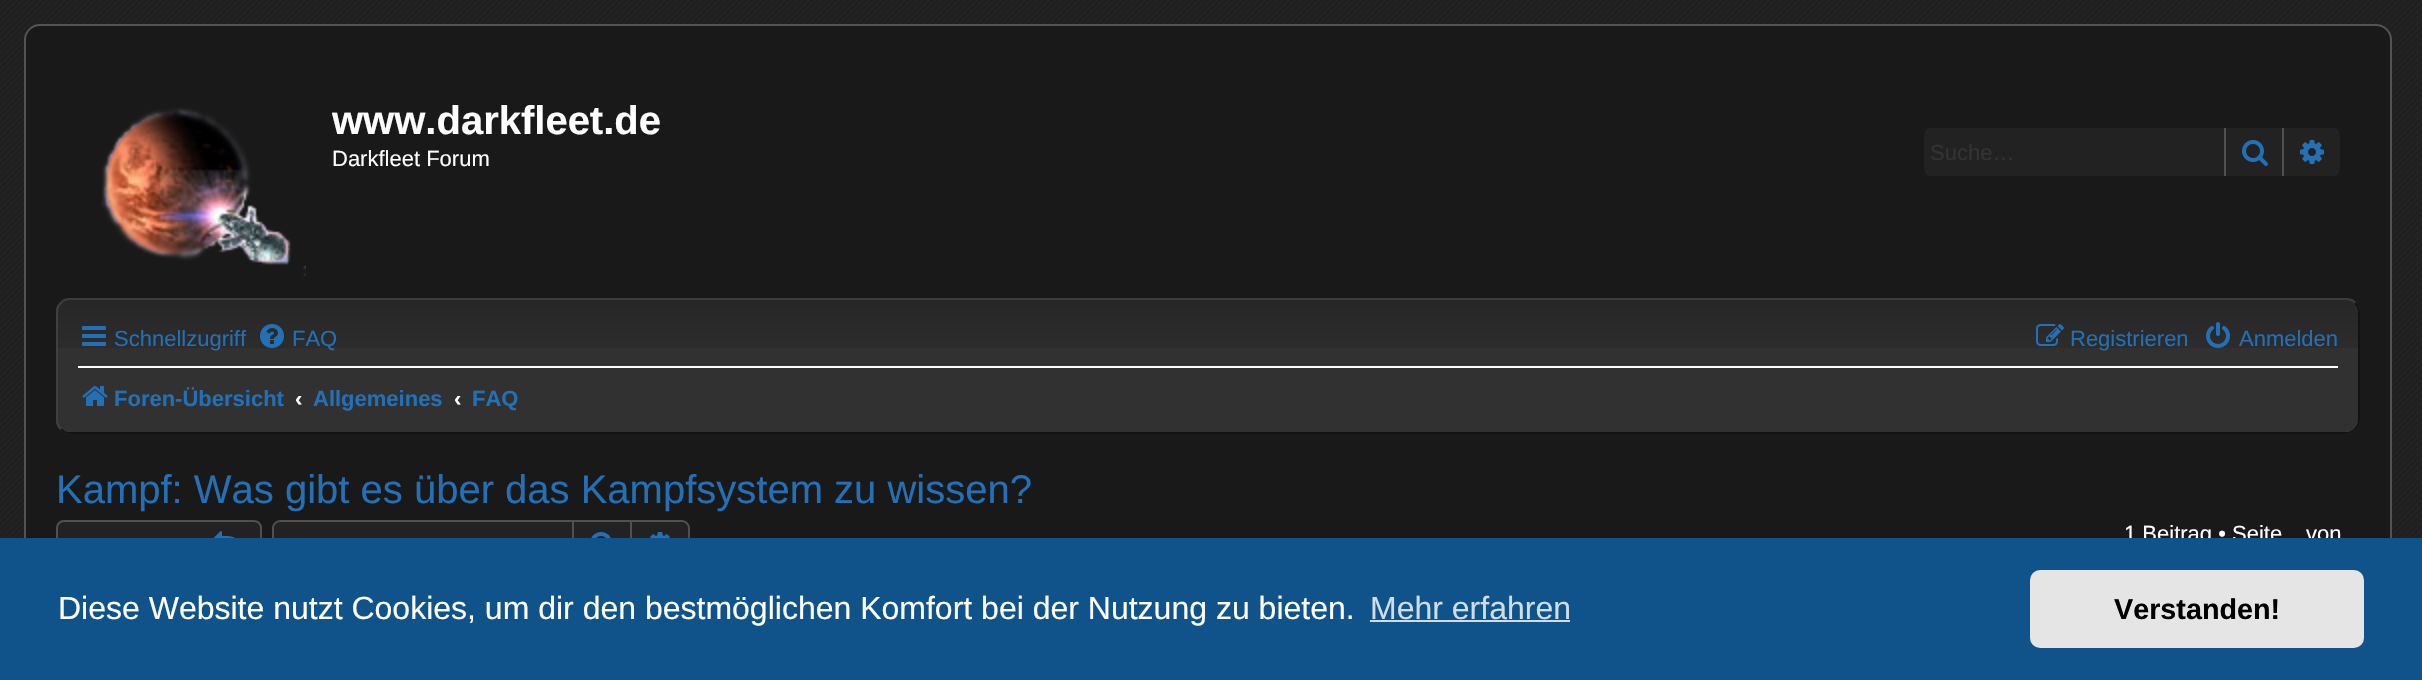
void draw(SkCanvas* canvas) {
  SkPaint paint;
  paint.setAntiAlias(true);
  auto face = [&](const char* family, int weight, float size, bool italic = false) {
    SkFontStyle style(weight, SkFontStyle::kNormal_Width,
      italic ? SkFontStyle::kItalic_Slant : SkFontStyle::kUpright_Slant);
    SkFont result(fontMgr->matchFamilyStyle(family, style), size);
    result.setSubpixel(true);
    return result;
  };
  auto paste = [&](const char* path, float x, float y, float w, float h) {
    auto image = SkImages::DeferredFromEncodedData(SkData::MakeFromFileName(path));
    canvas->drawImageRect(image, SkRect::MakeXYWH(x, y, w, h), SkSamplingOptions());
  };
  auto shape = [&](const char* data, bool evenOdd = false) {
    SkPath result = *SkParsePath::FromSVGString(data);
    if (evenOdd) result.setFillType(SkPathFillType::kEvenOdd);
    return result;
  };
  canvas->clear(0xffffffff);
  paste("img/1.png", 0, 0, 2422, 538);
  paint.setColor(0xff191919);
  canvas->drawRoundRect(SkRect::MakeXYWH(25, 25, 2366, 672), 15, 15, paint);
  paint.setStroke(true);
  paint.setStrokeWidth(2);
  paint.setColor(0xff545454);
  canvas->drawRoundRect(SkRect::MakeXYWH(25, 25, 2366, 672), 15, 15, paint);
  paste("img/2.png", 101, 107, 205, 169);
  paint.setStroke(false);
  paint.setColor(0xff222222);
  canvas->drawPath(shape("M1932 128H2224V176H1932C1927.5 176 1924 172.5 1924 168V136C1924 131.5 1927.5 128 1932 128Z"), paint);
  {
    const struct { float x, y, w, h; SkColor color; } items[] = {
      {2226, 128, 56, 48, 0xff222222},
      {2282, 128, 2, 48, 0xff505050},
      {2224, 128, 2, 48, 0xff505050},
    };
    for (auto [x, y, w, h, color] : items) {
      paint.setColor(color);
      canvas->drawRect(SkRect::MakeXYWH(x, y, w, h), paint);
    }
  }
  paste("img/3.png", 2242, 140, 26, 26);
  paint.setColor(0xff222222);
  canvas->drawPath(shape("M2284 128H2332C2336.5 128 2340 131.5 2340 136V168C2340 172.5 2336.5 176 2332 176H2284Z"), paint);
  paste("img/4.png", 2300, 140, 24, 24);
  paint.setColor(0xff313131);
  canvas->drawRoundRect(SkRect::MakeXYWH(56, 298, 2304, 136), 14, 14, paint);
  paste("img/5.png", 56, 300, 2304, 48);
  paint.setStroke(true);
  paint.setColor(0xff3c3c3c);
  canvas->drawPath(shape("M61 303C63 300.5 66.5 299 70 299H2346C2349.5 299 2353 300.5 2355 303"), paint);
  paint.setColor(0xff121212);
  canvas->drawPath(shape("M2355 303C2357.5 305 2359 308.5 2359 312V420C2359 423.5 2357.5 427 2355 429"), paint);
  paint.setColor(0xff131313);
  canvas->drawPath(shape("M2355 429C2353 431.5 2349.5 433 2346 433H70C66.5 433 63 431.5 61 429"), paint);
  paint.setColor(0xff404040);
  canvas->drawPath(shape("M61 429C58.5 427 57 423.5 57 420V312C57 308.5 58.5 305 61 303"), paint);
  paste("img/6.png", 82, 326, 24, 20);
  paste("img/7.png", 260, 324, 24, 24);
  paste("img/8.png", 2036, 324, 28, 22);
  paste("img/9.png", 2206, 322, 24, 26);
  paint.setStroke(false);
  paint.setColor(0xffffffff);
  canvas->drawRect(SkRect::MakeXYWH(78, 366, 2260, 2), paint);
  paste("img/10.png", 82, 386, 26, 20);
  paint.setColor(0xff222222);
  canvas->drawRoundRect(SkRect::MakeXYWH(57, 521, 204, 48), 7, 7, paint);
  paint.setStroke(true);
  paint.setColor(0xff505050);
  canvas->drawRoundRect(SkRect::MakeXYWH(57, 521, 204, 48), 7, 7, paint);
  paste("img/11.png", 213, 531, 22, 7);
  paint.setStroke(false);
  paint.setColor(0xff222222);
  canvas->drawPath(shape("M280 522H572V566H280C276.5 566 274 563.5 274 560V528C274 524.5 276.5 522 280 522Z"), paint);
  paint.setColor(0xff505050);
  canvas->drawPath(shape("M280 520H572V568H280C276 568 272 564 272 560V528C272 524 276 520 280 520ZM280 522H572V566H280C277 566 274 563 274 560V528C274 525 277 522 280 522Z", true), paint);
  paint.setColor(0xff222222);
  canvas->drawRect(SkRect::MakeXYWH(574, 522, 56, 16), paint);
  paint.setStroke(true);
  paint.setColor(0xff505050);
  canvas->drawRect(SkRect::MakeXYWH(573, 521, 58, 48), paint);
  paste("img/12.png", 591, 532, 20, 6);
  paint.setStroke(false);
  paint.setColor(0xff222222);
  canvas->drawPath(shape("M632 522H682C685.5 522 688 524.5 688 528V562C688 565.5 685.5 568 682 568H632Z"), paint);
  paint.setColor(0xff505050);
  canvas->drawPath(shape("M632 520H682C686 520 690 524 690 528V562C690 566 686 570 682 570H632ZM632 522H682C685 522 688 525 688 528V562C688 565 685 568 682 568H632Z", true), paint);
  paste("img/13.png", 650, 532, 20, 6);
  auto f0 = face("Liberation Sans", 700, 40);
  paint.setColor(0xffffffff);
  canvas->drawString("www.darkfleet.de", 332, 134, f0, paint);
  auto f1 = face("Liberation Sans", 400, 22);
  canvas->drawString("Darkfleet Forum", 332, 166, f1, paint);
  paint.setColor(0xff333333);
  canvas->drawString("Suche…", 1930, 160, f1, paint);
  paint.setColor(0xff2370b6);
  {
    const struct { const char* s; float x, y; } items[] = {
      {"Schnellzugriff", 114, 346},
      {"FAQ", 292, 346},
      {"Registrieren", 2070, 346},
      {"Anmelden", 2239, 346},
    };
    for (auto [s, x, y] : items) {
      canvas->drawString(s, x, y, f1, paint);
    }
  }
  auto f2 = face("Liberation Sans", 700, 22);
  canvas->drawString("Foren-Übersicht", 114, 406, f2, paint);
  paint.setColor(0xffffffff);
  canvas->drawString("‹", 295, 406, f2, paint);
  paint.setColor(0xff2370b6);
  canvas->drawString("Allgemeines", 313, 406, f2, paint);
  paint.setColor(0xffffffff);
  canvas->drawString("‹", 454, 406, f2, paint);
  paint.setColor(0xff2370b6);
  canvas->drawString("FAQ", 472, 406, f2, paint);
  auto f3 = face("Liberation Sans", 400, 40);
  canvas->drawString("Kampf: Was gibt es über das Kampfsystem zu wissen?", 56, 503, f3, paint);
  paint.setColor(0xffffffff);
  canvas->drawString("1 Beitrag • Seite", 2124, 541, f1, paint);
  canvas->drawString("von", 2306, 541, f1, paint);
  paint.setColor(0xff0f538a);
  canvas->drawRect(SkRect::MakeXYWH(0, 538, 2422, 142), paint);
  auto f4 = face("Liberation Sans", 400, 32);
  paint.setColor(0xffffffff);
  canvas->drawString("Diese Website nutzt Cookies, um dir den bestmöglichen Komfort bei der Nutzung zu bieten.", 58, 619, f4, paint);
  paint.setColor(0xffcfdde8);
  canvas->drawString("Mehr erfahren", 1370, 619, f4, paint);
  canvas->drawRect(SkRect::MakeXYWH(1370, 620, 200, 2), paint);
  paint.setColor(0xffe5e5e5);
  canvas->drawRoundRect(SkRect::MakeXYWH(2030, 570, 334, 78), 10, 10, paint);
  auto f5 = face("Liberation Sans", 700, 28.75f);
  paint.setColor(0xff000000);
  canvas->drawString("Verstanden!", 2114, 619, f5, paint);
}
